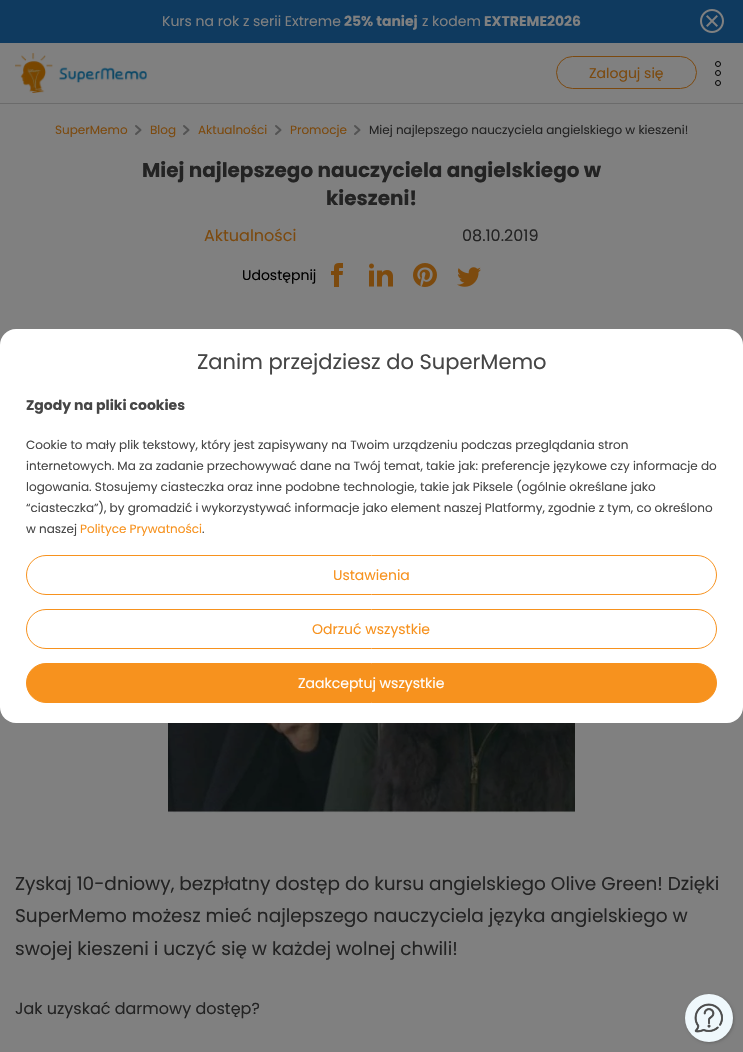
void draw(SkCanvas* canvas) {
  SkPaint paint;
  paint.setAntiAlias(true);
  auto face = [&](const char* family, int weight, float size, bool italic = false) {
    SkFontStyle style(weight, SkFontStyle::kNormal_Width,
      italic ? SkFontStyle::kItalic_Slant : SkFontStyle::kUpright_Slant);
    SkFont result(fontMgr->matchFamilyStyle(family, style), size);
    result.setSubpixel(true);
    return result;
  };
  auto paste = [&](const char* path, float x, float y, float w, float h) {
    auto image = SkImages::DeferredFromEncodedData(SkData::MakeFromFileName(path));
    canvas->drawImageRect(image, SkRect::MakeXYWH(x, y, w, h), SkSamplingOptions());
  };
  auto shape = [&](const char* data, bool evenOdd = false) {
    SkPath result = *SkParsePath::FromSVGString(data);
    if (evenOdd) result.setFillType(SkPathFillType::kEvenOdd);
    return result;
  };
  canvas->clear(0xff808080);
  paint.setColor(0xff6b6b6b);
  canvas->drawRect(SkRect::MakeXYWH(0, 103, 743, 1), paint);
  paint.setColor(0xff0f3a5f);
  canvas->drawRect(SkRect::MakeXYWH(0, 0, 743, 43), paint);
  paste("img/1.png", 700, 9, 24, 24);
  paste("img/2.png", 15, 53, 132, 40);
  paint.setStroke(true);
  paint.setStrokeWidth(1);
  paint.setColor(0xff7c490f);
  canvas->drawRoundRect(SkRect::MakeXYWH(556.5f, 56.5f, 140, 32), 16, 16, paint);
  paint.setColor(0xff000000);
  canvas->drawCircle(718, 64, 2.5f, paint);
  canvas->drawCircle(718, 73, 2.5f, paint);
  canvas->drawCircle(718, 83, 2.5f, paint);
  paint.setStrokeWidth(2);
  paint.setStrokeCap(SkPaint::kRound_Cap);
  paint.setStrokeJoin(SkPaint::kRound_Join);
  paint.setColor(0xff535353);
  canvas->drawPath(shape("M276 126L280.5 130L276 134"), paint);
  canvas->drawPath(shape("M355 126L359.5 130L355 134"), paint);
  paste("img/3.png", 331, 263, 12, 24);
  paste("img/4.png", 369, 263, 24, 24);
  paste("img/5.png", 413, 263, 24, 24);
  paste("img/6.png", 457, 267, 24, 20);
  paste("img/7.png", 168, 723, 407, 90);
  paint.setStroke(false);
  paint.setColor(0xffffffff);
  canvas->drawRoundRect(SkRect::MakeXYWH(0, 329, 743, 394), 16, 16, paint);
  paint.setStroke(true);
  paint.setStrokeWidth(1);
  paint.setStrokeCap(SkPaint::kButt_Cap);
  paint.setStrokeJoin(SkPaint::kMiter_Join);
  paint.setColor(0xfff7921e);
  canvas->drawRoundRect(SkRect::MakeXYWH(26.5f, 555.5f, 690, 39), 19.5f, 19.5f, paint);
  canvas->drawRoundRect(SkRect::MakeXYWH(26.5f, 609.5f, 690, 39), 19.5f, 19.5f, paint);
  paint.setStroke(false);
  canvas->drawRoundRect(SkRect::MakeXYWH(26.5f, 663.5f, 690, 39), 19.5f, 19.5f, paint);
  paint.setStroke(true);
  canvas->drawRoundRect(SkRect::MakeXYWH(26.5f, 663.5f, 690, 39), 19.5f, 19.5f, paint);
  paint.setStroke(false);
  paint.setColor(0x33000000);
  paint.setMaskFilter(SkMaskFilter::MakeBlur(kNormal_SkBlurStyle, 1.5f));
  canvas->drawRoundRect(SkRect::MakeXYWH(686, 995, 48, 48), 24, 24, paint);
  paint.setMaskFilter(nullptr);
  paint.setColor(0xffeff8fc);
  canvas->drawCircle(709, 1018, 24, paint);
  paste("img/8.png", 694, 1003, 29, 30);
  auto f0 = face("Poppins", 400, 14);
  paint.setColor(0xff808080);
  canvas->drawString("Kurs na rok z serii Extreme", 162, 26, f0, paint);
  auto f1 = face("Poppins", 700, 14);
  canvas->drawString("25% taniej", 344, 26, f1, paint);
  canvas->drawString("z kodem", 422, 26, f0, paint);
  canvas->drawString("EXTREME2026", 484, 26, f1, paint);
  paint.setColor(0xff7c4a0f);
  canvas->drawString("Zaloguj się", 589, 78, f0, paint);
  auto f2 = face("Poppins", 400, 12);
  {
    const struct { const char* s; float x, y; } items[] = {
      {"SuperMemo", 55, 134},
      {"Aktualności", 198, 134},
      {"Promocje", 290, 134},
    };
    for (auto [s, x, y] : items) {
      canvas->drawString(s, x, y, f2, paint);
    }
  }
  paint.setColor(0xff232323);
  canvas->drawString("Miej najlepszego nauczyciela angielskiego w kieszeni!", 369, 134, f2, paint);
  paint.setColor(0xff7c4a0f);
  canvas->drawString("Blog", 150, 134, f2, paint);
  paint.setStroke(true);
  paint.setStrokeWidth(2);
  paint.setStrokeCap(SkPaint::kRound_Cap);
  paint.setStrokeJoin(SkPaint::kRound_Join);
  paint.setColor(0xff535353);
  canvas->drawPath(shape("M136 126L140.5 130L136 134M184 126L188.5 130L184 134"), paint);
  auto f3 = face("Poppins", 700, 20);
  paint.setStroke(false);
  paint.setColor(0xff232323);
  canvas->drawString("Miej najlepszego nauczyciela angielskiego w", 142, 177, f3, paint);
  canvas->drawString("kieszeni!", 326, 205, f3, paint);
  auto f4 = face("Poppins", 400, 16);
  paint.setColor(0xff7c4a0f);
  canvas->drawString("Aktualności", 204, 241, f4, paint);
  paint.setColor(0xff232323);
  canvas->drawString("08.10.2019", 462, 241, f4, paint);
  paint.setColor(0xff000000);
  canvas->drawString("Udostępnij", 242, 280, f0, paint);
  auto f5 = face("Poppins", 400, 18.5f);
  paint.setColor(0xff232323);
  {
    const struct { const char* s; float x, y; } items[] = {
      {"Zyskaj 10-dniowy, bezpłatny dostęp do kursu angielskiego Olive Green! Dzięki", 15, 890},
      {"SuperMemo możesz mieć najlepszego nauczyciela języka angielskiego w", 15, 922},
      {"swojej kieszeni i uczyć się w każdej wolnej chwili!", 15, 955},
    };
    for (auto [s, x, y] : items) {
      canvas->drawString(s, x, y, f5, paint);
    }
  }
  canvas->drawString("Jak uzyskać darmowy dostęp?", 15, 1014, f4, paint);
  auto f6 = face("Poppins", 400, 21);
  paint.setColor(0xff464646);
  canvas->drawString("Zanim przejdziesz do SuperMemo", 197, 369, f6, paint);
  canvas->drawString("Zgody na pliki cookies", 26, 410, f1, paint);
  {
    const struct { const char* s; float x, y; } items[] = {
      {"Cookie to mały plik tekstowy, który jest zapisywany na Twoim urządzeniu podczas przeglądania stron", 26, 449},
      {"internetowych. Ma za zadanie przechowywać dane na Twój temat, takie jak: preferencje językowe czy informacje do", 26, 470},
      {"logowania. Stosujemy ciasteczka oraz inne podobne technologie, takie jak Piksele (ogólnie określane jako", 26, 491},
      {"“ciasteczka”), by gromadzić i wykorzystywać informacje jako element naszej Platformy, zgodnie z tym, co określono", 26, 512},
      {"w naszej", 26, 533},
    };
    for (auto [s, x, y] : items) {
      canvas->drawString(s, x, y, f2, paint);
    }
  }
  paint.setColor(0xfff7921e);
  canvas->drawString("Polityce Prywatności", 80, 533, f2, paint);
  paint.setColor(0xff464646);
  canvas->drawString(".", 202, 533, f2, paint);
  paint.setColor(0xfff7921e);
  canvas->drawString("Ustawienia", 333, 580, f0, paint);
  canvas->drawString("Odrzuć wszystkie", 312, 634, f0, paint);
  paint.setColor(0xffffffff);
  canvas->drawString("Zaakceptuj wszystkie", 298, 688, f0, paint);
}
